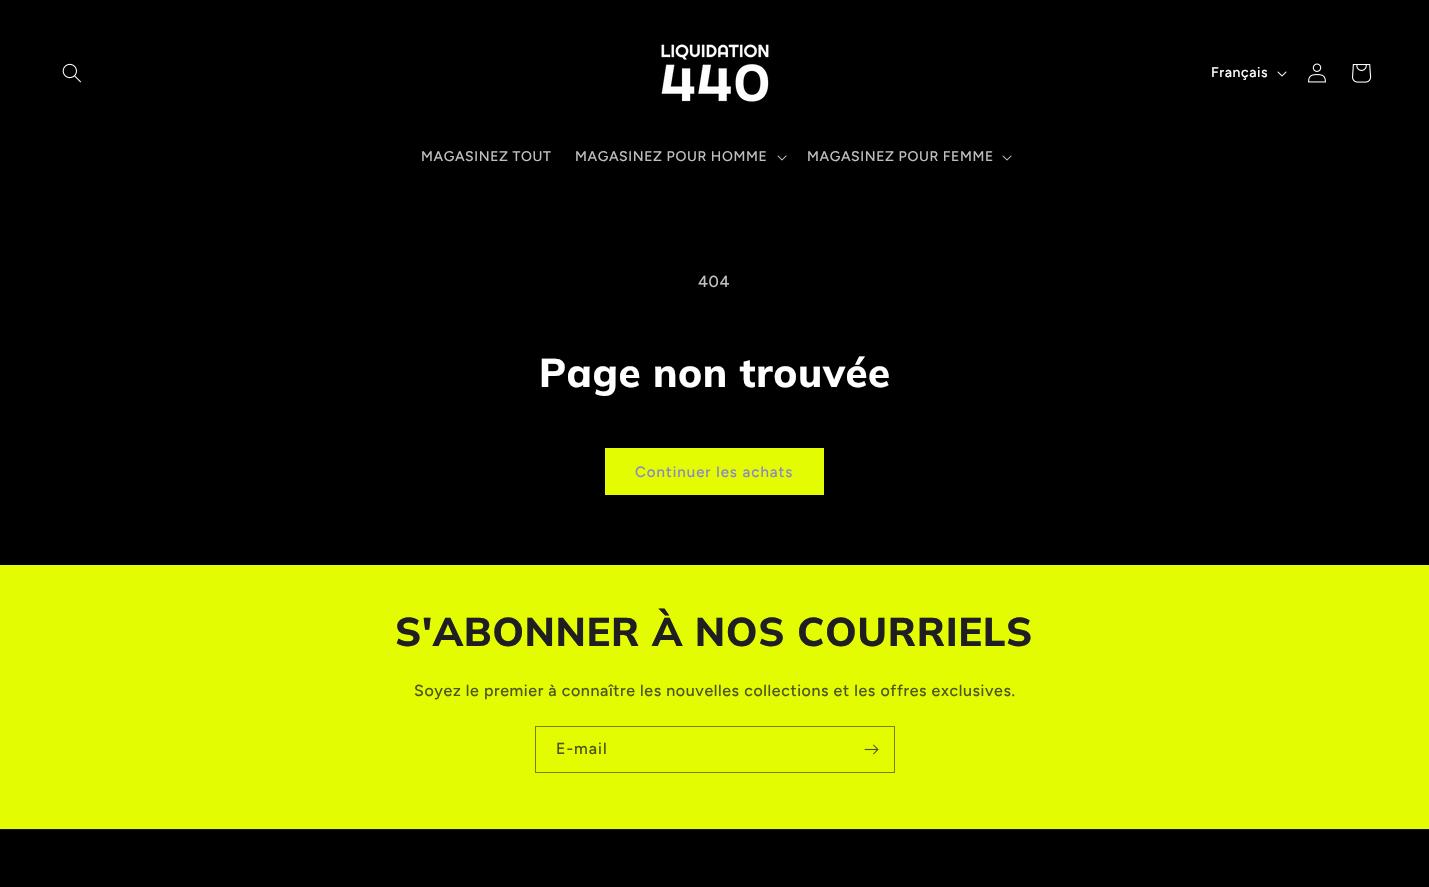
void draw(SkCanvas* canvas) {
  SkPaint paint;
  paint.setAntiAlias(true);
  auto face = [&](const char* family, int weight, float size, bool italic = false) {
    SkFontStyle style(weight, SkFontStyle::kNormal_Width,
      italic ? SkFontStyle::kItalic_Slant : SkFontStyle::kUpright_Slant);
    SkFont result(fontMgr->matchFamilyStyle(family, style), size);
    result.setSubpixel(true);
    return result;
  };
  auto writeSpaced = [&](const char* s, float x, float y, const SkFont& font, const SkPaint& ink, float letter, float word) {
    std::vector<SkGlyphID> glyphs(font.countText(s, strlen(s), SkTextEncoding::kUTF8));
    std::vector<float> xs(glyphs.size());
    font.textToGlyphs(s, strlen(s), SkTextEncoding::kUTF8, glyphs);
    font.getXPos(glyphs, xs, x);
    float extra = 0;
    for (size_t i = 0; i < glyphs.size(); i++) {
      xs[i] += extra;
      extra += letter + word * (glyphs[i] == font.unicharToGlyph(' '));
    }
    canvas->drawTextBlob(SkTextBlob::MakeFromPosHGlyphs(glyphs, xs, y, font), 0, 0, ink);
  };
  auto paste = [&](const char* path, float x, float y, float w, float h) {
    auto image = SkImages::DeferredFromEncodedData(SkData::MakeFromFileName(path));
    canvas->drawImageRect(image, SkRect::MakeXYWH(x, y, w, h), SkSamplingOptions());
  };
  canvas->clear(0xff000000);
  paste("img/1.png", 62, 63, 19, 20);
  paste("img/2.png", 660, 44, 111, 60);
  paste("img/3.png", 1277, 71, 10, 6);
  paste("img/4.png", 1308, 63, 18, 20);
  paste("img/5.png", 1352, 64, 20, 19);
  paste("img/6.png", 777, 155, 10, 6);
  paste("img/6.png", 1002, 155, 10, 6);
  paint.setColor(0xffe3fc02);
  canvas->drawRect(SkRect::MakeXYWH(605, 448, 219, 47), paint);
  canvas->drawRect(SkRect::MakeXYWH(0, 565, 1429, 264), paint);
  paint.setStroke(true);
  paint.setStrokeWidth(1);
  paint.setColor(0xff778213);
  canvas->drawRect(SkRect::MakeXYWH(535.5f, 726.5f, 359, 46), paint);
  paste("img/7.png", 864, 744, 15, 11);
  paint.setStroke(false);
  paint.setColor(0xff141414);
  canvas->drawRect(SkRect::MakeXYWH(0, 829, 1429, 1), paint);
  auto f0 = face("Figtree", 500, 14);
  paint.setColor(0xffffffff);
  writeSpaced("Français", 1211, 77, f0, paint, 0.6f, 0);
  paint.setColor(0xffbfbfbf);
  {
    const struct { const char* s; float x, y; } items[] = {
      {"MAGASINEZ TOUT", 421, 161},
      {"MAGASINEZ POUR HOMME", 575, 161},
      {"MAGASINEZ POUR FEMME", 807, 161},
    };
    for (auto [s, x, y] : items) {
      writeSpaced(s, x, y, f0, paint, 0.6f, 0);
    }
  }
  auto f1 = face("Figtree", 500, 16);
  writeSpaced("404", 698, 287, f1, paint, 0.6f, 0);
  auto f2 = face("Muli", 800, 40);
  paint.setColor(0xffffffff);
  writeSpaced("Page non trouvée", 539, 387, f2, paint, 0.6f, 0);
  auto f3 = face("Figtree", 500, 15);
  paint.setColor(0xff8989c6);
  writeSpaced("Continuer les achats", 635, 477, f3, paint, 1, 0);
  paint.setColor(0xff1f1f21);
  writeSpaced("S'ABONNER À NOS COURRIELS", 395, 646, f2, paint, 0.6f, 0);
  paint.setColor(0xff505619);
  writeSpaced("Soyez le premier à connaître les nouvelles collections et les offres exclusives.", 414, 696, f1, paint, 0.6f, 0);
  writeSpaced("E-mail", 556, 754, f1, paint, 1, 0);
}
